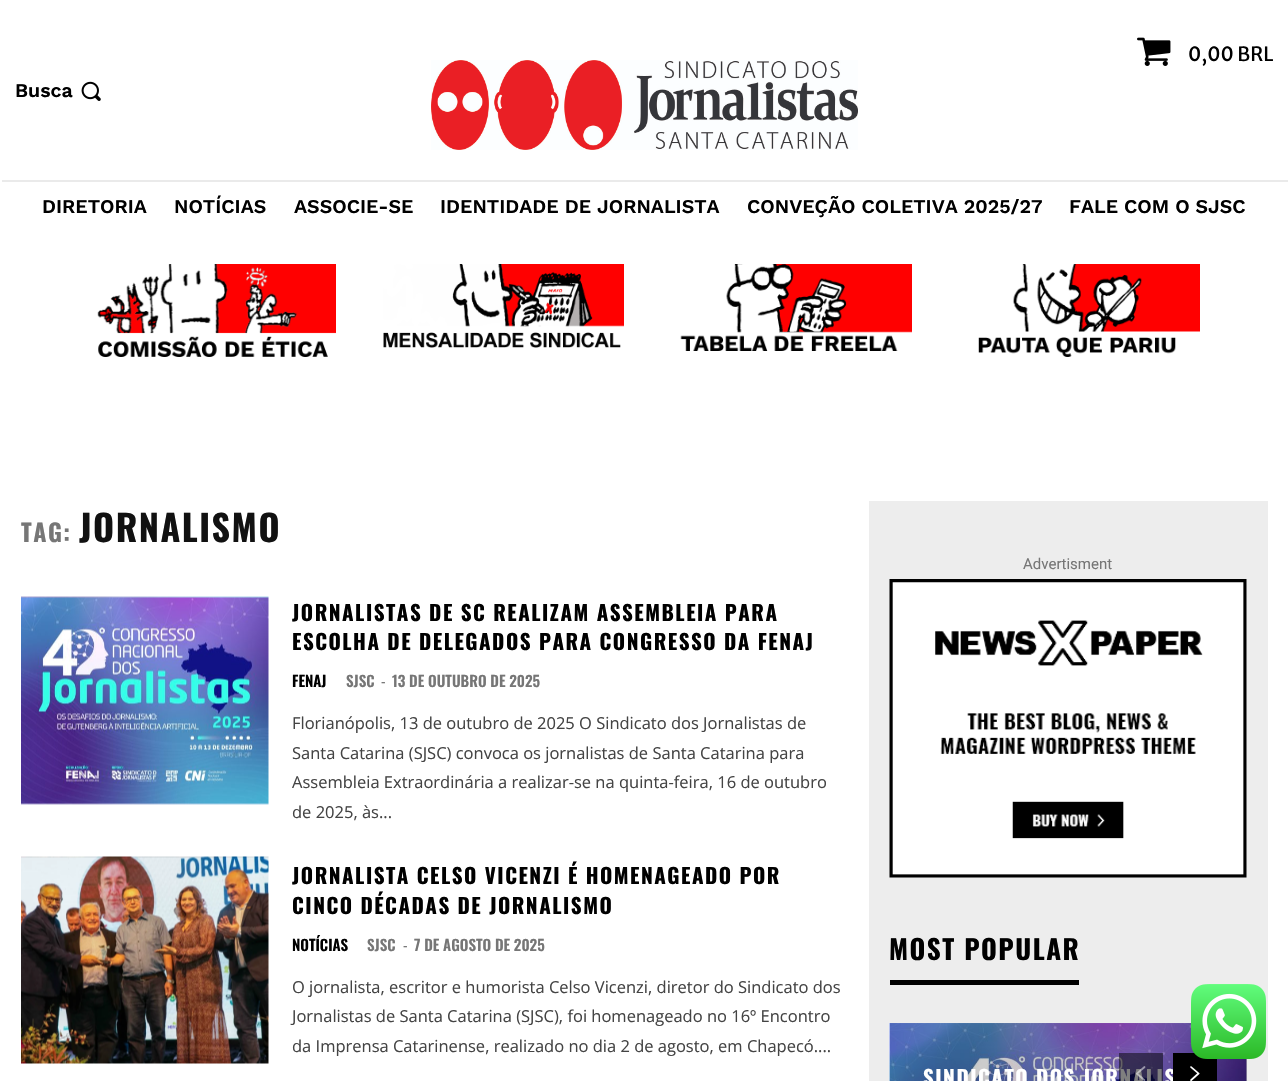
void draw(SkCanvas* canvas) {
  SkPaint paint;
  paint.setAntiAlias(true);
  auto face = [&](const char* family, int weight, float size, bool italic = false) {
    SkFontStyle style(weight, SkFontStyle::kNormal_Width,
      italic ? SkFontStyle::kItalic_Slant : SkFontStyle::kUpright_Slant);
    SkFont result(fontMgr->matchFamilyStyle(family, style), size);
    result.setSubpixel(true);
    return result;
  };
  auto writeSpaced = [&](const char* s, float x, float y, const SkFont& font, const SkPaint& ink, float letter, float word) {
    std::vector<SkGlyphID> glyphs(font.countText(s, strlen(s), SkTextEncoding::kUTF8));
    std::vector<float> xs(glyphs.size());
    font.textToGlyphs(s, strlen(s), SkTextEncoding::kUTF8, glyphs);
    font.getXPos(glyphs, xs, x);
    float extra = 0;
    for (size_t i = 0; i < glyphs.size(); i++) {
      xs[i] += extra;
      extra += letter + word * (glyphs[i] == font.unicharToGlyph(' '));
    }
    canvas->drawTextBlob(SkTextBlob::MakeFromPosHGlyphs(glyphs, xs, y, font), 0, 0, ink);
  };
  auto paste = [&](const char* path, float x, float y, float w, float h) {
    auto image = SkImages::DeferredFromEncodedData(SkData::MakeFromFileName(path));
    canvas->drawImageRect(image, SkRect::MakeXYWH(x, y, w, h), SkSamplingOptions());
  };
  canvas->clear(0xffffffff);
  paste("img/1.png", 1137, 37, 34, 29);
  paste("img/2.png", 81, 81, 20, 20);
  paste("img/3.png", 431, 60, 427, 90);
  paint.setColor(0xffeaeaea);
  canvas->drawRect(SkRect::MakeXYWH(2, 180, 1286, 2), paint);
  paste("img/4.png", 97, 264, 239, 93);
  paste("img/5.png", 383, 264, 241, 84);
  paste("img/6.png", 680, 264, 232, 87);
  paste("img/7.png", 978, 264, 222, 93);
  paste("img/8.png", 21, 596, 248, 209);
  paste("img/9.png", 21, 856, 248, 208);
  paint.setColor(0xffededed);
  canvas->drawRect(SkRect::MakeXYWH(869, 501, 399, 580), paint);
  paint.setColor(0xffbebebe);
  canvas->drawRect(SkRect::MakeXYWH(890, 1023, 357, 58), paint);
  paste("img/10.png", 889, 579, 358, 299);
  paint.setColor(0xff000000);
  canvas->drawRect(SkRect::MakeXYWH(890, 980, 189, 5), paint);
  paste("img/13.png", 889, 1023, 358, 58);
  auto f0 = face("Merriweather Sans", 400, 19.5f);
  canvas->drawString("0,00 BRL", 1188, 61, f0, paint);
  auto f1 = face("Work Sans", 600, 19.5f);
  {
    const struct { const char* s; float x, y; } items[] = {
      {"Busca", 15, 97},
      {"DIRETORIA", 42, 213},
      {"NOTÍCIAS", 174, 213},
      {"ASSOCIE-SE", 294, 213},
      {"IDENTIDADE DE JORNALISTA", 440, 213},
      {"CONVEÇÃO COLETIVA 2025/27", 747, 213},
      {"FALE COM O SJSC", 1069, 213},
    };
    for (auto [s, x, y] : items) {
      canvas->drawString(s, x, y, f1, paint);
    }
  }
  auto f2 = face("Oswald", 700, 24);
  paint.setColor(0xff767676);
  writeSpaced("TAG:", 21, 542, f2, paint, 1.5f, 0);
  auto f3 = face("Oswald", 700, 36);
  paint.setColor(0xff111111);
  writeSpaced("JORNALISMO", 79, 542, f3, paint, 1.5f, 0);
  auto f4 = face("Oswald", 700, 21);
  paint.setColor(0xff000000);
  writeSpaced("JORNALISTAS DE SC REALIZAM ASSEMBLEIA PARA", 292, 621, f4, paint, 1.5f, 0);
  writeSpaced("ESCOLHA DE DELEGADOS PARA CONGRESSO DA FENAJ", 292, 650, f4, paint, 1.5f, 0);
  auto f5 = face("Oswald", 600, 15);
  canvas->drawString("FENAJ", 292, 687, f5, paint);
  paint.setColor(0xff767676);
  canvas->drawString("SJSC", 346, 687, f5, paint);
  auto f6 = face("Oswald", 400, 15);
  canvas->drawString("-", 381, 687, f6, paint);
  canvas->drawString("13 DE OUTUBRO DE 2025", 392, 687, f5, paint);
  auto f7 = face("Open Sans", 400, 16.5f);
  paint.setColor(0xff444444);
  {
    const struct { const char* s; float x, y; } items[] = {
      {"Florianópolis, 13 de outubro de 2025 O Sindicato dos Jornalistas de", 292, 729},
      {"Santa Catarina (SJSC) convoca os jornalistas de Santa Catarina para", 292, 759},
      {"Assembleia Extraordinária a realizar-se na quinta-feira, 16 de outubro", 292, 788},
      {"de 2025, às...", 292, 818},
    };
    for (auto [s, x, y] : items) {
      canvas->drawString(s, x, y, f7, paint);
    }
  }
  paint.setColor(0xff000000);
  writeSpaced("JORNALISTA CELSO VICENZI É HOMENAGEADO POR", 292, 884, f4, paint, 1.5f, 0);
  writeSpaced("CINCO DÉCADAS DE JORNALISMO", 292, 914, f4, paint, 1.5f, 0);
  canvas->drawString("NOTÍCIAS", 292, 951, f5, paint);
  paint.setColor(0xff767676);
  canvas->drawString("SJSC", 367, 951, f5, paint);
  canvas->drawString("-", 403, 951, f6, paint);
  canvas->drawString("7 DE AGOSTO DE 2025", 414, 951, f5, paint);
  paint.setColor(0xff444444);
  {
    const struct { const char* s; float x, y; } items[] = {
      {"O jornalista, escritor e humorista Celso Vicenzi, diretor do Sindicato dos", 292, 993},
      {"Jornalistas de Santa Catarina (SJSC), foi homenageado no 16º Encontro", 292, 1022},
      {"da Imprensa Catarinense, realizado no dia 2 de agosto, em Chapecó....", 292, 1052},
    };
    for (auto [s, x, y] : items) {
      canvas->drawString(s, x, y, f7, paint);
    }
  }
  auto f8 = face("Roboto", 400, 15);
  paint.setColor(0xff767676);
  canvas->drawString("Advertisment", 1023, 569, f8, paint);
  auto f9 = face("Oswald", 700, 27);
  paint.setColor(0xff000000);
  writeSpaced("MOST POPULAR", 889, 960, f9, paint, 1.5f, 0);
  paint.setColor(0xffffffff);
  writeSpaced("SINDICATO DOS JORNALIS", 923, 1086, f4, paint, 1.5f, 0);
  paint.setColor(0x80000000);
  canvas->drawRect(SkRect::MakeXYWH(1119, 1053, 44, 28), paint);
  paste("img/11.png", 1136, 1066, 10, 15);
  paint.setColor(0xff000000);
  canvas->drawRect(SkRect::MakeXYWH(1173, 1053, 44, 28), paint);
  paste("img/12.png", 1190, 1066, 10, 15);
  paste("img/14.png", 1191, 984, 75, 75);
}
